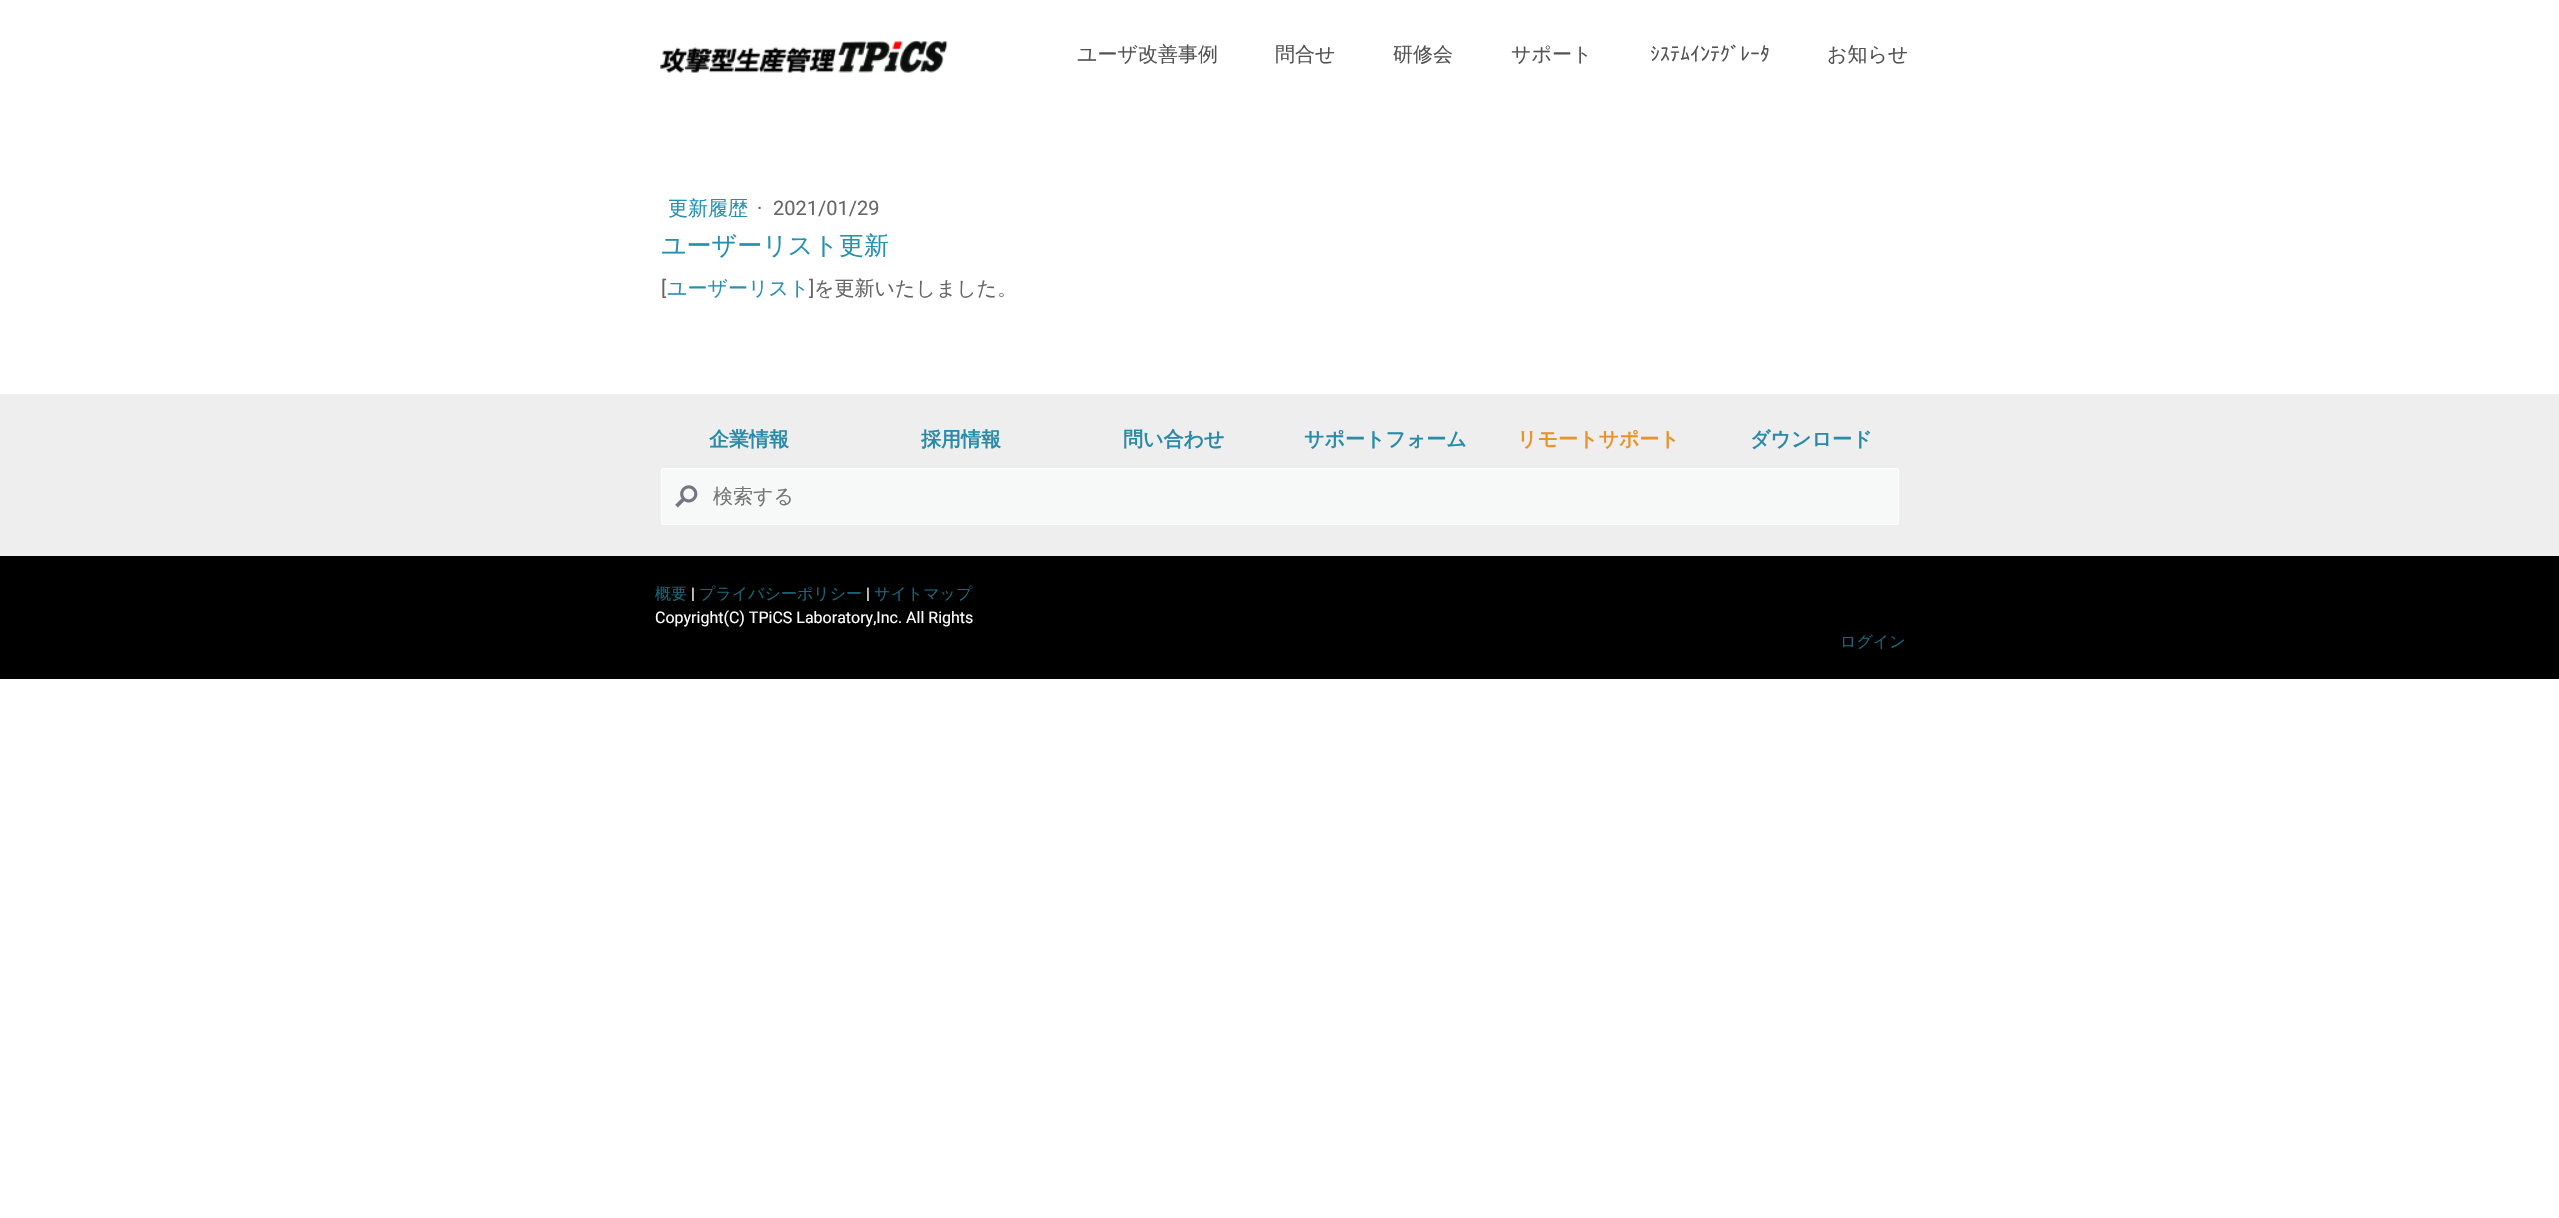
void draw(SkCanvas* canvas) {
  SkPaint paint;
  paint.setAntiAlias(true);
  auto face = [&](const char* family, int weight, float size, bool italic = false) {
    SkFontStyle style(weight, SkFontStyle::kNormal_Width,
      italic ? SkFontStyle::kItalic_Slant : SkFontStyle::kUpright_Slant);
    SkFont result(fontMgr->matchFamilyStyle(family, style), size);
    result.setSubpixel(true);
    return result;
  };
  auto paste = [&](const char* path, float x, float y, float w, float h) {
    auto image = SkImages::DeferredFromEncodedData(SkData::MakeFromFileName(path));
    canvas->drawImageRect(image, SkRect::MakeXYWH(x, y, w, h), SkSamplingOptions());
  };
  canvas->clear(0xffffffff);
  paste("img/1.png", 660, 40, 288, 33);
  paint.setColor(0xffeeeeee);
  canvas->drawRect(SkRect::MakeXYWH(0, 394, 2559, 162), paint);
  paint.setColor(0xfff7f8f8);
  canvas->drawRoundRect(SkRect::MakeXYWH(661.5f, 468.5f, 1237, 56), 2, 2, paint);
  paint.setStroke(true);
  paint.setStrokeWidth(1);
  paint.setColor(0xffffffff);
  canvas->drawRoundRect(SkRect::MakeXYWH(661.5f, 468.5f, 1237, 56), 2, 2, paint);
  paste("img/2.png", 675, 485, 23, 23);
  paint.setStroke(false);
  paint.setColor(0xff000000);
  canvas->drawRect(SkRect::MakeXYWH(0, 556, 2559, 123), paint);
  auto f0 = face("WenQuanYi Zen Hei", 500, 20);
  paint.setColor(0xff525252);
  {
    const struct { const char* s; float x, y; } items[] = {
      {"ユーザ改善事例", 1077, 61},
      {"問合せ", 1275, 61},
      {"研修会", 1393, 61},
      {"サポート", 1511, 61},
    };
    for (auto [s, x, y] : items) {
      canvas->drawString(s, x, y, f0, paint);
    }
  }
  auto f1 = face("IPAPGothic", 400, 20);
  canvas->drawString("ｼｽﾃﾑｲﾝﾃｸﾞﾚｰﾀ", 1650, 61, f1, paint);
  canvas->drawString("お知らせ", 1827, 61, f0, paint);
  paint.setColor(0xff2591b1);
  canvas->drawString("更新履歴", 668, 215, f0, paint);
  auto f2 = face("Roboto", 400, 20);
  paint.setColor(0xff666666);
  canvas->drawString("·", 757, 215, f2, paint);
  canvas->drawString("2021/01/29", 773, 215, f2, paint);
  auto f3 = face("WenQuanYi Zen Hei", 500, 25);
  paint.setColor(0xff2591b1);
  canvas->drawString("ユーザーリスト更新", 661, 254, f3, paint);
  paint.setColor(0xff666666);
  canvas->drawString("[", 661, 295, f2, paint);
  paint.setColor(0xff2591b1);
  canvas->drawString("ユーザーリスト", 667, 295, f0, paint);
  paint.setColor(0xff666666);
  canvas->drawString("]", 809, 295, f2, paint);
  canvas->drawString("を更新いたしました。", 814, 295, f0, paint);
  auto f4 = face("WenQuanYi Zen Hei", 700, 20);
  paint.setColor(0xff298ba8);
  {
    const struct { const char* s; float x, y; } items[] = {
      {"企業情報", 709, 446},
      {"採用情報", 921, 446},
      {"問い合わせ", 1123, 446},
      {"サポートフォーム", 1304, 446},
    };
    for (auto [s, x, y] : items) {
      canvas->drawString(s, x, y, f4, paint);
    }
  }
  paint.setColor(0xffe9932b);
  canvas->drawString("リモートサポート", 1517, 446, f4, paint);
  paint.setColor(0xff298ba8);
  canvas->drawString("ダウンロード", 1750, 446, f4, paint);
  paint.setColor(0xff757575);
  canvas->drawString("検索する", 713, 503, f0, paint);
  auto f5 = face("WenQuanYi Zen Hei", 500, 16);
  paint.setColor(0xff1a667c);
  canvas->drawString("概要", 655, 599, f5, paint);
  auto f6 = face("Roboto", 400, 16);
  paint.setColor(0xffffffff);
  canvas->drawString("|", 691, 599, f6, paint);
  paint.setColor(0xff1a667c);
  canvas->drawString("プライバシーポリシー", 699, 599, f5, paint);
  paint.setColor(0xffffffff);
  canvas->drawString("|", 866, 599, f6, paint);
  paint.setColor(0xff1a667c);
  canvas->drawString("サイトマップ", 874, 599, f5, paint);
  paint.setColor(0xffffffff);
  canvas->drawString("Copyright(C) TPiCS Laboratory,Inc. All Rights", 655, 623, f6, paint);
  paint.setColor(0xff1a667c);
  canvas->drawString("ログイン", 1840, 647, f5, paint);
}
